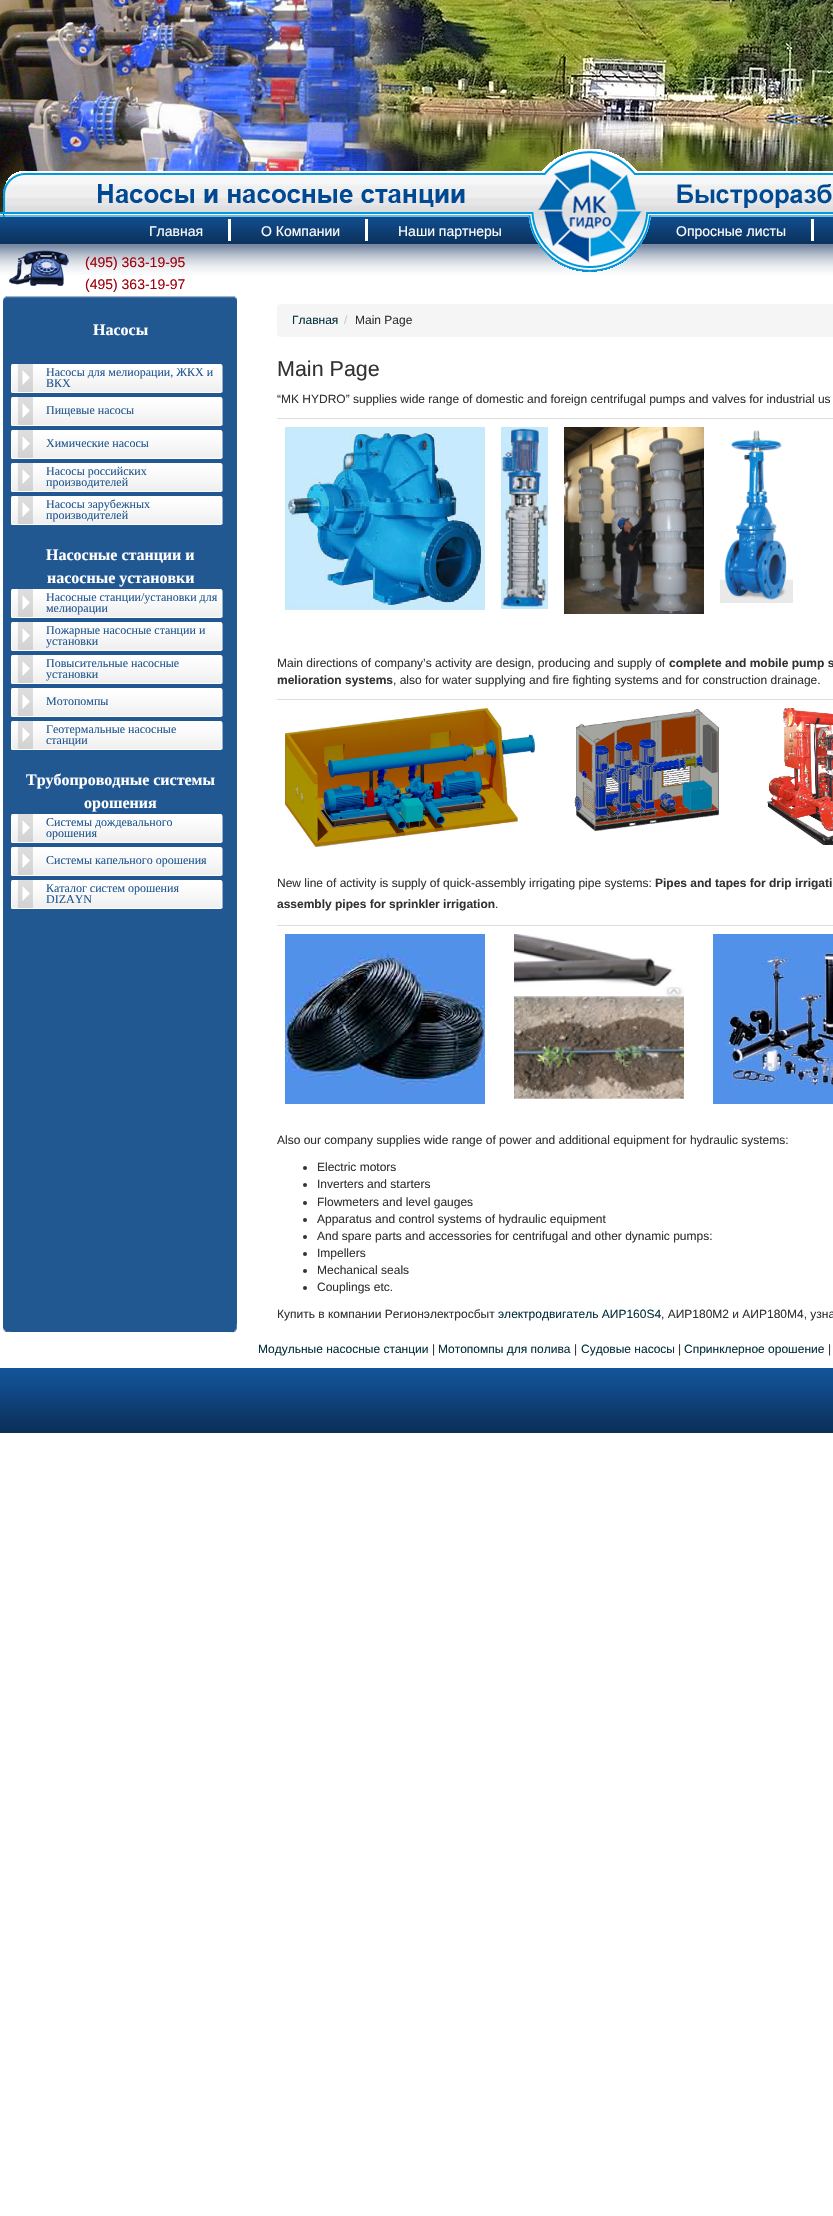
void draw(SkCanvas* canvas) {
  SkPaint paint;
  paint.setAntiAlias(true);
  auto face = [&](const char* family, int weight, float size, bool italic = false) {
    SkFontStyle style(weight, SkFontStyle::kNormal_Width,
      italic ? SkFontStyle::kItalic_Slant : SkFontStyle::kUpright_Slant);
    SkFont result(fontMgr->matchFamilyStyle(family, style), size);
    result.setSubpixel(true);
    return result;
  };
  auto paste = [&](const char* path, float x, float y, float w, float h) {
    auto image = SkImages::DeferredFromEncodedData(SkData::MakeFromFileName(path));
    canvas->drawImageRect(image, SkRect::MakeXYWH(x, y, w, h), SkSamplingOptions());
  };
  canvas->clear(0xffffffff);
  paste("img/1.png", 0, 0, 3, 217);
  paste("img/2.png", 3, 0, 830, 215);
  paste("img/3.png", 3, 149, 830, 68);
  paste("img/4.png", 0, 217, 833, 27);
  {
    const struct { float x, y, w, h; SkColor color; } items[] = {
      {228, 219, 3, 22, 0xffffffff},
      {365, 219, 3, 22, 0xffffffff},
      {811, 219, 3, 22, 0xffffffff},
    };
    for (auto [x, y, w, h, color] : items) {
      paint.setColor(color);
      canvas->drawRect(SkRect::MakeXYWH(x, y, w, h), paint);
    }
  }
  paste("img/5.png", 0, 244, 3, 31);
  paste("img/6.png", 3, 244, 830, 31);
  paste("img/7.png", 9, 250, 60, 36);
  paste("img/8.png", 528, 217, 123, 55);
  paste("img/9.png", 3, 296, 8, 8);
  paste("img/10.png", 11, 296, 218, 8);
  paste("img/11.png", 229, 296, 8, 8);
  paint.setColor(0xff225892);
  canvas->drawRect(SkRect::MakeXYWH(3, 304, 234, 1020), paint);
  paint.setColor(0xfff5f5f5);
  canvas->drawRoundRect(SkRect::MakeXYWH(277, 304, 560, 33), 4, 4, paint);
  paint.setColor(0xffdddddd);
  canvas->drawRect(SkRect::MakeXYWH(277, 418, 556, 1), paint);
  paste("img/12.png", 285, 427, 200, 183);
  paste("img/13.png", 501, 427, 47, 182);
  paste("img/14.png", 564, 427, 140, 187);
  paste("img/15.png", 720, 430, 73, 173);
  canvas->drawRect(SkRect::MakeXYWH(277, 699, 556, 1), paint);
  paste("img/16.png", 767, 708, 66, 137);
  paste("img/17.png", 285, 708, 250, 139);
  paste("img/18.png", 574, 709, 145, 122);
  canvas->drawRect(SkRect::MakeXYWH(277, 925, 556, 1), paint);
  paste("img/19.png", 713, 934, 120, 170);
  paste("img/20.png", 285, 934, 200, 170);
  paste("img/21.png", 514, 934, 170, 165);
  paint.setColor(0xff333333);
  canvas->drawCircle(305, 1168, 2, paint);
  canvas->drawCircle(305, 1185, 2, paint);
  canvas->drawCircle(305, 1203, 2, paint);
  canvas->drawCircle(305, 1220, 2, paint);
  canvas->drawCircle(305, 1237, 2, paint);
  canvas->drawCircle(305, 1254, 2, paint);
  canvas->drawCircle(305, 1271, 2, paint);
  canvas->drawCircle(305, 1288, 2, paint);
  paste("img/22.png", 11, 364, 212, 29);
  paste("img/22.png", 11, 397, 212, 29);
  paste("img/22.png", 11, 430, 212, 29);
  paste("img/22.png", 11, 463, 212, 29);
  paste("img/22.png", 11, 496, 212, 29);
  paste("img/22.png", 11, 589, 212, 29);
  paste("img/22.png", 11, 622, 212, 29);
  paste("img/22.png", 11, 655, 212, 29);
  paste("img/22.png", 11, 688, 212, 29);
  paste("img/22.png", 11, 721, 212, 29);
  paste("img/22.png", 11, 814, 212, 29);
  paste("img/22.png", 11, 847, 212, 29);
  paste("img/22.png", 11, 880, 212, 29);
  paste("img/23.png", 3, 1324, 8, 8);
  paint.setColor(0xff225892);
  canvas->drawRect(SkRect::MakeXYWH(11, 1324, 218, 8), paint);
  paste("img/24.png", 229, 1324, 8, 9);
  paste("img/25.png", 0, 1368, 14, 65);
  paste("img/26.png", 14, 1368, 819, 65);
  auto f0 = face("Liberation Sans", 400, 14);
  paint.setColor(0xffffffff);
  {
    const struct { const char* s; float x, y; } items[] = {
      {"Главная", 149, 236},
      {"О Компании", 261, 236},
      {"Наши партнеры", 398, 236},
      {"Опросные листы", 676, 236},
    };
    for (auto [s, x, y] : items) {
      canvas->drawString(s, x, y, f0, paint);
    }
  }
  paint.setColor(0xffa1000b);
  canvas->drawString("(495) 363-19-95", 85, 267, f0, paint);
  canvas->drawString("(495) 363-19-97", 85, 289, f0, paint);
  auto f1 = face("Liberation Sans", 400, 12);
  paint.setColor(0xff06303e);
  canvas->drawString("Главная", 292, 324, f1, paint);
  paint.setColor(0xffcccccc);
  canvas->drawString("/", 344, 324, f1, paint);
  paint.setColor(0xff333333);
  canvas->drawString("Main Page", 355, 324, f1, paint);
  auto f2 = face("Liberation Sans", 400, 21.5f);
  canvas->drawString("Main Page", 277, 376, f2, paint);
  canvas->drawString("“MK HYDRO” supplies wide range of domestic and foreign centrifugal pumps and valves for industrial us", 277, 403, f1, paint);
  canvas->drawString("Main directions of company’s activity are design, producing and supply of", 277, 667, f1, paint);
  auto f3 = face("Liberation Sans", 700, 12);
  canvas->drawString("complete and mobile pump s", 669, 667, f3, paint);
  canvas->drawString("melioration systems", 277, 684, f3, paint);
  canvas->drawString(", also for water supplying and fire fighting systems and for construction drainage.", 393, 684, f1, paint);
  canvas->drawString("New line of activity is supply of quick-assembly irrigating pipe systems:", 277, 887, f1, paint);
  canvas->drawString("Pipes and tapes for drip irrigati", 655, 887, f3, paint);
  canvas->drawString("assembly pipes for sprinkler irrigation", 277, 908, f3, paint);
  {
    const struct { const char* s; float x, y; } items[] = {
      {".", 495, 908},
      {"Also our company supplies wide range of power and additional equipment for hydraulic systems:", 277, 1144},
      {"Electric motors", 317, 1171},
      {"Inverters and starters", 317, 1188},
      {"Flowmeters and level gauges", 317, 1206},
      {"Apparatus and control systems of hydraulic equipment", 317, 1223},
      {"And spare parts and accessories for centrifugal and other dynamic pumps:", 317, 1240},
      {"Impellers", 317, 1257},
      {"Mechanical seals", 317, 1274},
      {"Couplings etc.", 317, 1291},
      {"Купить в компании Регионэлектросбыт", 277, 1318},
    };
    for (auto [s, x, y] : items) {
      canvas->drawString(s, x, y, f1, paint);
    }
  }
  paint.setColor(0xff06303e);
  canvas->drawString("электродвигатель АИР160S4", 498, 1318, f1, paint);
  paint.setColor(0xff333333);
  canvas->drawString(", АИР180М2 и АИР180М4, узна", 661, 1318, f1, paint);
  auto f4 = face("Liberation Serif", 700, 16);
  paint.setColor(0xffffffff);
  canvas->drawString("Насосы", 93, 335, f4, paint);
  auto f5 = face("Liberation Serif", 400, 12);
  paint.setColor(0xff225892);
  {
    const struct { const char* s; float x, y; } items[] = {
      {"Насосы для мелиорации, ЖКХ и", 46, 376},
      {"ВКХ", 46, 387},
      {"Пищевые насосы", 46, 414},
      {"Химические насосы", 46, 447},
      {"Насосы российских", 46, 475},
      {"производителей", 46, 486},
      {"Насосы зарубежных", 46, 508},
      {"производителей", 46, 519},
    };
    for (auto [s, x, y] : items) {
      canvas->drawString(s, x, y, f5, paint);
    }
  }
  paint.setColor(0xffffffff);
  canvas->drawString("Насосные станции и", 46, 560, f4, paint);
  canvas->drawString("насосные установки", 47, 583, f4, paint);
  paint.setColor(0xff225892);
  {
    const struct { const char* s; float x, y; } items[] = {
      {"Насосные станции/установки для", 46, 601},
      {"мелиорации", 46, 612},
      {"Пожарные насосные станции и", 46, 634},
      {"установки", 46, 645},
      {"Повысительные насосные", 46, 667},
      {"установки", 46, 678},
      {"Мотопомпы", 46, 705},
      {"Геотермальные насосные", 46, 733},
      {"станции", 46, 744},
    };
    for (auto [s, x, y] : items) {
      canvas->drawString(s, x, y, f5, paint);
    }
  }
  paint.setColor(0xffffffff);
  canvas->drawString("Трубопроводные системы", 26, 785, f4, paint);
  canvas->drawString("орошения", 84, 808, f4, paint);
  paint.setColor(0xff225892);
  {
    const struct { const char* s; float x, y; } items[] = {
      {"Системы дождевального", 46, 826},
      {"орошения", 46, 837},
      {"Системы капельного орошения", 46, 864},
      {"Каталог систем орошения", 46, 892},
      {"DIZAYN", 46, 903},
    };
    for (auto [s, x, y] : items) {
      canvas->drawString(s, x, y, f5, paint);
    }
  }
  paint.setColor(0xff06303e);
  canvas->drawString("Модульные насосные станции", 258, 1353, f1, paint);
  paint.setColor(0xff333333);
  canvas->drawString("|", 432, 1353, f1, paint);
  paint.setColor(0xff06303e);
  canvas->drawString("Мотопомпы для полива", 438, 1353, f1, paint);
  paint.setColor(0xff333333);
  canvas->drawString("|", 574, 1353, f1, paint);
  paint.setColor(0xff06303e);
  canvas->drawString("Судовые насосы", 581, 1353, f1, paint);
  paint.setColor(0xff333333);
  canvas->drawString("|", 678, 1353, f1, paint);
  paint.setColor(0xff06303e);
  canvas->drawString("Спринклерное орошение", 684, 1353, f1, paint);
  paint.setColor(0xff333333);
  canvas->drawString("|", 828, 1353, f1, paint);
}
